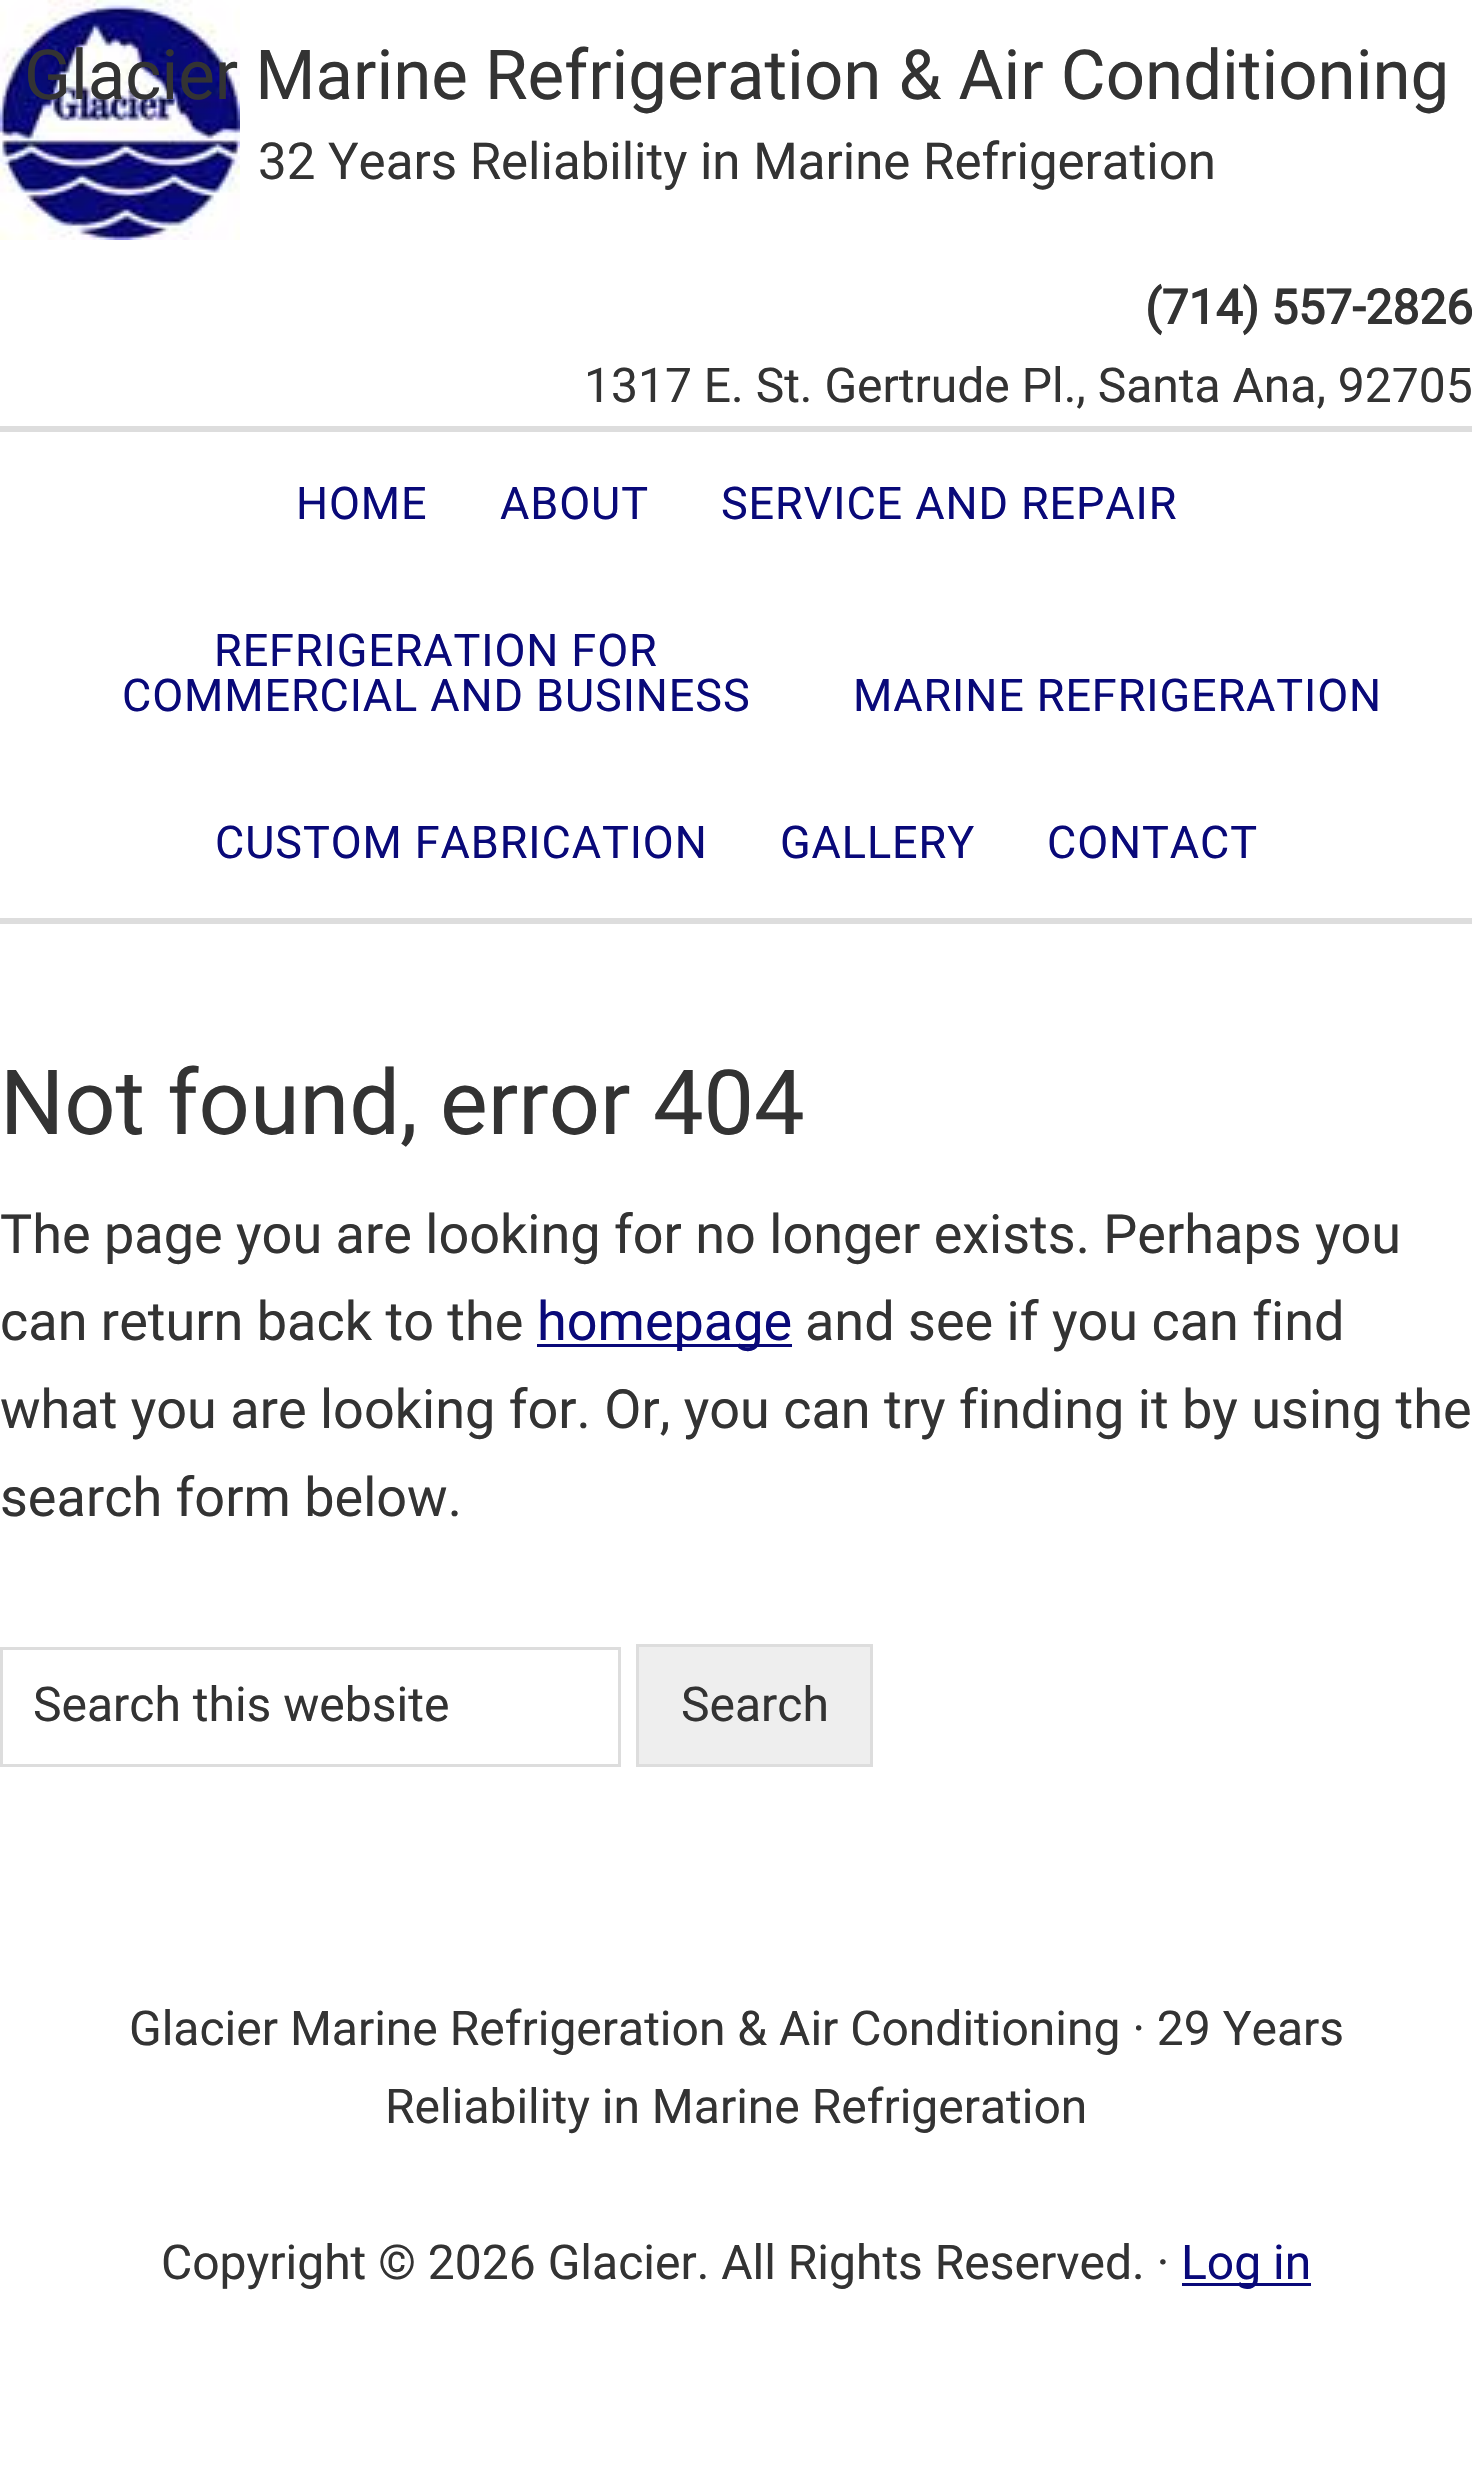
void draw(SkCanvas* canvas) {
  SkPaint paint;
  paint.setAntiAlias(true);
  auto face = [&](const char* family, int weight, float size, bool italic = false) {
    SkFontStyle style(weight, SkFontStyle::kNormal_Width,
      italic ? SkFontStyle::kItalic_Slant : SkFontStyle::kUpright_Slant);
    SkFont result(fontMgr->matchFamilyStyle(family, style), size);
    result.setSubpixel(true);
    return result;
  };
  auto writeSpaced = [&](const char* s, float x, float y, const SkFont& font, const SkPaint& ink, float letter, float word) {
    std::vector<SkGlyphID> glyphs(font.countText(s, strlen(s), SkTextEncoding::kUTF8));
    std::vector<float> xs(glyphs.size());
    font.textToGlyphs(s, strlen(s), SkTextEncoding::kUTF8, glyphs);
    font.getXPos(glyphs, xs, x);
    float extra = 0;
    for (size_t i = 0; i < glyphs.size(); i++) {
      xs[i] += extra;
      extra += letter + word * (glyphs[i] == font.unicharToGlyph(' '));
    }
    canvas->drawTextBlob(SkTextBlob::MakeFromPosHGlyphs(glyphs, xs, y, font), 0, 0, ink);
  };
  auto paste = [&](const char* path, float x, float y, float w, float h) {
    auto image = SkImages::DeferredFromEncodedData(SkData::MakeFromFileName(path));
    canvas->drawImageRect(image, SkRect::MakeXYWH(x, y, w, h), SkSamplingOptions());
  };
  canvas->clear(0xffffffff);
  paste("img/1.png", 0, 0, 240, 240);
  {
    const struct { float x, y, w, h; SkColor color; } items[] = {
      {0, 426, 1472, 6, 0xffdddddd},
      {0, 918, 1472, 6, 0xffdddddd},
      {537, 1344, 255, 3, 0xff090979},
    };
    for (auto [x, y, w, h, color] : items) {
      paint.setColor(color);
      canvas->drawRect(SkRect::MakeXYWH(x, y, w, h), paint);
    }
  }
  paint.setStroke(true);
  paint.setStrokeWidth(3);
  paint.setColor(0xffdddddd);
  canvas->drawRect(SkRect::MakeXYWH(1.5f, 1648.5f, 618, 117), paint);
  paint.setStroke(false);
  paint.setColor(0xffeeeeee);
  canvas->drawRect(SkRect::MakeXYWH(637.5f, 1645.5f, 234, 120), paint);
  paint.setStroke(true);
  paint.setColor(0xffdddddd);
  canvas->drawRect(SkRect::MakeXYWH(637.5f, 1645.5f, 234, 120), paint);
  paint.setStroke(false);
  paint.setColor(0xff090979);
  canvas->drawRect(SkRect::MakeXYWH(1182, 2283, 129, 3), paint);
  auto f0 = face("Roboto", 400, 69);
  paint.setColor(0xff333333);
  canvas->drawString("Glacier Marine Refrigeration & Air Conditioning", 24, 99, f0, paint);
  auto f1 = face("Roboto", 400, 51);
  canvas->drawString("32 Years Reliability in Marine Refrigeration", 258, 179, f1, paint);
  auto f2 = face("Roboto", 700, 48);
  canvas->drawString("(714) 557-2826", 1145, 324, f2, paint);
  auto f3 = face("Roboto", 400, 48);
  canvas->drawString("1317 E. St. Gertrude Pl., Santa Ana, 92705", 584, 402, f3, paint);
  auto f4 = face("Roboto", 400, 45);
  paint.setColor(0xff090979);
  {
    const struct { const char* s; float x, y; } items[] = {
      {"HOME", 296, 519},
      {"ABOUT", 500, 519},
      {"SERVICE AND REPAIR", 721, 519},
      {"REFRIGERATION FOR", 214, 666},
      {"COMMERCIAL AND BUSINESS", 122, 711},
      {"MARINE REFRIGERATION", 853, 711},
      {"CUSTOM FABRICATION", 215, 858},
      {"GALLERY", 780, 858},
      {"CONTACT", 1047, 858},
    };
    for (auto [s, x, y] : items) {
      writeSpaced(s, x, y, f4, paint, 0.9f, 0);
    }
  }
  auto f5 = face("Roboto", 400, 90);
  paint.setColor(0xff333333);
  canvas->drawString("Not found, error 404", 0, 1134, f5, paint);
  auto f6 = face("Roboto", 400, 54);
  canvas->drawString("The page you are looking for no longer exists. Perhaps you", 0, 1253, f6, paint);
  canvas->drawString("can return back to the", 0, 1340, f6, paint);
  paint.setColor(0xff090979);
  canvas->drawString("homepage", 537, 1340, f6, paint);
  paint.setColor(0xff333333);
  {
    const struct { const char* s; float x, y; } items[] = {
      {"and see if you can find", 805, 1340},
      {"what you are looking for. Or, you can try finding it by using the", 0, 1428},
      {"search form below.", 0, 1516},
    };
    for (auto [s, x, y] : items) {
      canvas->drawString(s, x, y, f6, paint);
    }
  }
  {
    const struct { const char* s; float x, y; } items[] = {
      {"Search this website", 33, 1721},
      {"Search", 681, 1721},
      {"Glacier Marine Refrigeration & Air Conditioning · 29 Years", 129, 2045},
      {"Reliability in Marine Refrigeration", 385, 2123},
      {"Copyright © 2026 Glacier. All Rights Reserved. ·", 161, 2279},
    };
    for (auto [s, x, y] : items) {
      canvas->drawString(s, x, y, f3, paint);
    }
  }
  paint.setColor(0xff090979);
  canvas->drawString("Log in", 1181, 2279, f3, paint);
}
